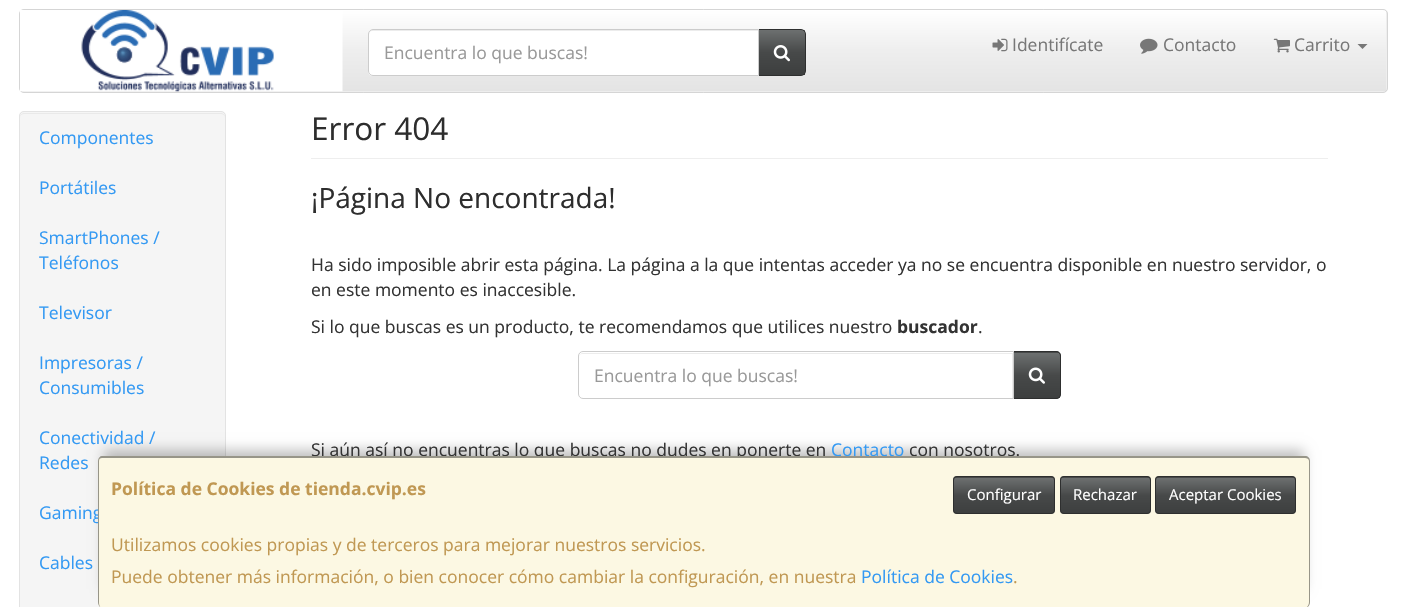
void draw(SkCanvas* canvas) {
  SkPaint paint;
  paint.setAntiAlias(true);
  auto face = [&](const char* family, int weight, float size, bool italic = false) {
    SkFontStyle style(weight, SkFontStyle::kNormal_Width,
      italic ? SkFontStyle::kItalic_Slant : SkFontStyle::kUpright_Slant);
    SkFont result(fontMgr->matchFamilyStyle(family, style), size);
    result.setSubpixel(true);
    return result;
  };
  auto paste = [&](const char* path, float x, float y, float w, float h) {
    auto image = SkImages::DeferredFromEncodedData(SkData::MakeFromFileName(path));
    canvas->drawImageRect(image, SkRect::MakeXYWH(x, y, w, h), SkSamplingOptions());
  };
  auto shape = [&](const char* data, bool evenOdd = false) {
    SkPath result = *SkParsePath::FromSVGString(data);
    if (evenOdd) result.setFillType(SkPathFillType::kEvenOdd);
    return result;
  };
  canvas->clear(0xffffffff);
  paint.setColor(0xffeeeeee);
  canvas->drawRoundRect(SkRect::MakeXYWH(19, 9, 1369, 84), 5, 5, paint);
  {
    const SkColor colors[] = {0xffffffff, 0xffeeeeee, 0xffe4e4e4};
    const float stops[] = {0, 0.5f, 1};
    const SkPoint ends[] = {{703, 10}, {703, 91}};
    paint.setShader(SkGradientShader::MakeLinear(ends, colors, stops, 3, SkTileMode::kClamp));
    paint.setAlpha(255);
  }
  canvas->drawRect(SkRect::MakeXYWH(342, 10, 1044, 81), paint);
  paint.setStroke(true);
  paint.setStrokeWidth(1);
  paint.setShader(nullptr);
  paint.setColor(0xffd5d5d5);
  canvas->drawRoundRect(SkRect::MakeXYWH(19.5f, 9.5f, 1368, 83), 4.5f, 4.5f, paint);
  paste("img/1.png", 20, 10, 323, 82);
  paint.setStroke(false);
  {
    const SkColor colors[] = {0xff6d7070, 0xff474949, 0xff3d3f3f};
    const float stops[] = {0, 0.5f, 1};
    const SkPoint ends[] = {{782, 30}, {782, 75}};
    paint.setShader(SkGradientShader::MakeLinear(ends, colors, stops, 3, SkTileMode::kClamp));
    paint.setAlpha(255);
  }
  canvas->drawRect(SkRect::MakeXYWH(759, 30, 46, 45), paint);
  paint.setStroke(true);
  paint.setShader(nullptr);
  paint.setColor(0xff2e2f2f);
  canvas->drawPath(shape("M758.5 29.5H801C803.5 29.5 805.5 31.5 805.5 34V71C805.5 73.5 803.5 75.5 801 75.5H758.5Z"), paint);
  paint.setStroke(false);
  paint.setColor(0xffffffff);
  canvas->drawPath(shape("M373 29H759V76H373C370 76 368 74 368 71V34C368 31 370 29 373 29Z"), paint);
  paint.setColor(0xffececec);
  canvas->drawPath(shape("M372 31H758V30H373C370 30 369 32 369 35C369 33 370 31 372 31Z"), paint);
  paint.setStroke(true);
  paint.setColor(0xffcccccc);
  canvas->drawPath(shape("M373 29.5H758.5V75.5H373C370.5 75.5 368.5 73.5 368.5 71V34C368.5 31.5 370.5 29.5 373 29.5Z"), paint);
  paste("img/2.png", 773, 45, 17, 17);
  paste("img/3.png", 992, 38, 16, 14);
  paste("img/4.png", 1140, 38, 18, 16);
  paste("img/5.png", 1273, 38, 17, 15);
  paint.setStroke(false);
  paint.setColor(0xff777777);
  canvas->drawPath(shape("M1357.5 44H1367.5L1362.5 49Z"), paint);
  paint.setColor(0xfff5f5f5);
  canvas->drawRoundRect(SkRect::MakeXYWH(19, 111, 207, 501), 5, 5, paint);
  paint.setColor(0xffe9e9e9);
  canvas->drawPath(shape("M24 114H221C223 114 225 115 225 118V117C225 115 223 113 221 113H24C22 113 20 115 20 117V118C20 115 22 114 24 114Z"), paint);
  paint.setStroke(true);
  paint.setColor(0xffe3e3e3);
  canvas->drawRoundRect(SkRect::MakeXYWH(19.5f, 111.5f, 206, 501), 4.5f, 4.5f, paint);
  paint.setStroke(false);
  paint.setColor(0xffeeeeee);
  canvas->drawRect(SkRect::MakeXYWH(311, 158, 1017, 1), paint);
  paint.setColor(0xff474949);
  canvas->drawPath(shape("M1013 351H1056C1059 351 1061 353 1061 356V394C1061 397 1059 399 1056 399H1013Z"), paint);
  {
    const SkColor colors[] = {0xff6d7070, 0xff474949, 0xff3d3f3f};
    const float stops[] = {0, 0.5f, 1};
    const SkPoint ends[] = {{1037, 353}, {1037, 398}};
    paint.setShader(SkGradientShader::MakeLinear(ends, colors, stops, 3, SkTileMode::kClamp));
    paint.setAlpha(255);
  }
  canvas->drawRect(SkRect::MakeXYWH(1014, 353, 46, 45), paint);
  paint.setStroke(true);
  paint.setShader(nullptr);
  paint.setColor(0xff2e2f2f);
  canvas->drawPath(shape("M1013.5 351.5H1056C1058.5 351.5 1060.5 353.5 1060.5 356V394C1060.5 396.5 1058.5 398.5 1056 398.5H1013.5Z"), paint);
  paint.setStroke(false);
  paint.setColor(0xffffffff);
  canvas->drawPath(shape("M583 351H1014V399H583C580 399 578 397 578 394V356C578 353 580 351 583 351Z"), paint);
  paint.setColor(0xffececec);
  canvas->drawPath(shape("M582 354H1012V398H1013V353H583C581 353 579 355 579 357V358C579 355 580 354 582 354Z"), paint);
  paint.setStroke(true);
  paint.setColor(0xffcccccc);
  canvas->drawPath(shape("M583 351.5H1013.5V398.5H583C580.5 398.5 578.5 396.5 578.5 394V356C578.5 353.5 580.5 351.5 583 351.5Z"), paint);
  paste("img/6.png", 1028, 367, 17, 17);
  paint.setStroke(false);
  paint.setColor(0x40000000);
  paint.setMaskFilter(SkMaskFilter::MakeBlur(kNormal_SkBlurStyle, 6));
  canvas->drawRect(SkRect::MakeXYWH(104, 450, 1200, 139), paint);
  paint.setMaskFilter(nullptr);
  auto f0 = face("Open Sans", 400, 17.5f);
  paint.setColor(0xff999999);
  canvas->drawString("Encuentra lo que buscas!", 384, 59, f0, paint);
  paint.setColor(0xff777777);
  {
    const struct { const char* s; float x, y; } items[] = {
      {"Identifícate", 1012, 51},
      {"Contacto", 1163, 51},
      {"Carrito", 1294, 51},
    };
    for (auto [s, x, y] : items) {
      canvas->drawString(s, x, y, f0, paint);
    }
  }
  paint.setColor(0xff3399f3);
  {
    const struct { const char* s; float x, y; } items[] = {
      {"Componentes", 39, 144},
      {"Portátiles", 39, 194},
      {"SmartPhones /", 39, 244},
      {"Teléfonos", 39, 269},
      {"Televisor", 39, 319},
      {"Impresoras /", 39, 369},
      {"Consumibles", 39, 394},
      {"Conectividad /", 39, 444},
      {"Redes", 39, 469},
      {"Gaming", 39, 519},
      {"Cables", 39, 569},
    };
    for (auto [s, x, y] : items) {
      canvas->drawString(s, x, y, f0, paint);
    }
  }
  auto f1 = face("Open Sans", 400, 31.5f);
  paint.setColor(0xff2d2d2d);
  canvas->drawString("Error 404", 311, 140, f1, paint);
  auto f2 = face("Open Sans", 400, 28);
  canvas->drawString("¡Página No encontrada!", 311, 208, f2, paint);
  paint.setColor(0xff333333);
  {
    const struct { const char* s; float x, y; } items[] = {
      {"Ha sido imposible abrir esta página. La página a la que intentas acceder ya no se encuentra disponible en nuestro servidor, o", 311, 271},
      {"en este momento es inaccesible.", 311, 296},
      {"Si lo que buscas es un producto, te recomendamos que utilices nuestro", 311, 333},
    };
    for (auto [s, x, y] : items) {
      canvas->drawString(s, x, y, f0, paint);
    }
  }
  auto f3 = face("Open Sans", 700, 17.5f);
  canvas->drawString("buscador", 897, 333, f3, paint);
  canvas->drawString(".", 978, 333, f0, paint);
  paint.setColor(0xff999999);
  canvas->drawString("Encuentra lo que buscas!", 594, 382, f0, paint);
  paint.setColor(0xff333333);
  canvas->drawString("Si aún así no encuentras lo que buscas no dudes en ponerte en", 311, 456, f0, paint);
  paint.setColor(0xff3399f3);
  canvas->drawString("Contacto", 831, 456, f0, paint);
  paint.setColor(0xff333333);
  canvas->drawString("con nosotros.", 909, 456, f0, paint);
  paint.setColor(0xfffcf8e3);
  canvas->drawRoundRect(SkRect::MakeXYWH(98, 456, 1212, 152), 5, 5, paint);
  paint.setColor(0x66000000);
  canvas->drawPath(shape("M102 456H1305C1308 456 1310 458 1310 461V602C1310 605 1308 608 1305 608H102C100 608 98 605 98 602V461C98 458 100 456 102 456ZM102 458H1305C1307 458 1309 459 1309 461V602C1309 605 1307 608 1305 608H102C100 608 99 605 99 602V461C99 459 100 458 102 458Z", true), paint);
  paint.setColor(0xffc09853);
  canvas->drawString("Política de Cookies de tienda.cvip.es", 111, 495, f3, paint);
  paint.setColor(0xff474949);
  canvas->drawRoundRect(SkRect::MakeXYWH(953, 476, 102, 38), 4, 4, paint);
  {
    const SkColor colors[] = {0xff6d7070, 0xff474949, 0xff3d3f3f};
    const float stops[] = {0, 0.5f, 1};
    const SkPoint ends[] = {{1004, 478}, {1004, 513}};
    paint.setShader(SkGradientShader::MakeLinear(ends, colors, stops, 3, SkTileMode::kClamp));
    paint.setAlpha(255);
  }
  canvas->drawRect(SkRect::MakeXYWH(954, 478, 100, 35), paint);
  paint.setStroke(true);
  paint.setShader(nullptr);
  paint.setColor(0xff2e2f2f);
  canvas->drawRoundRect(SkRect::MakeXYWH(953.5f, 476.5f, 101, 37), 3.5f, 3.5f, paint);
  auto f4 = face("Open Sans", 400, 15);
  paint.setStroke(false);
  paint.setColor(0xffffffff);
  canvas->drawString("Configurar", 967, 500, f4, paint);
  paint.setColor(0xff474949);
  canvas->drawRoundRect(SkRect::MakeXYWH(1060, 476, 91, 38), 4, 4, paint);
  {
    const SkColor colors[] = {0xff6d7070, 0xff474949, 0xff3d3f3f};
    const float stops[] = {0, 0.5f, 1};
    const SkPoint ends[] = {{1106, 478}, {1106, 513}};
    paint.setShader(SkGradientShader::MakeLinear(ends, colors, stops, 3, SkTileMode::kClamp));
    paint.setAlpha(255);
  }
  canvas->drawRect(SkRect::MakeXYWH(1061, 478, 89, 35), paint);
  paint.setStroke(true);
  paint.setShader(nullptr);
  paint.setColor(0xff2e2f2f);
  canvas->drawRoundRect(SkRect::MakeXYWH(1060.5f, 476.5f, 90, 37), 3.5f, 3.5f, paint);
  paint.setStroke(false);
  paint.setColor(0xffffffff);
  canvas->drawString("Rechazar", 1073, 500, f4, paint);
  paint.setColor(0xff474949);
  canvas->drawRoundRect(SkRect::MakeXYWH(1155, 476, 141, 38), 4, 4, paint);
  {
    const SkColor colors[] = {0xff6d7070, 0xff474949, 0xff3d3f3f};
    const float stops[] = {0, 0.5f, 1};
    const SkPoint ends[] = {{1226, 478}, {1226, 513}};
    paint.setShader(SkGradientShader::MakeLinear(ends, colors, stops, 3, SkTileMode::kClamp));
    paint.setAlpha(255);
  }
  canvas->drawRect(SkRect::MakeXYWH(1156, 478, 139, 35), paint);
  paint.setStroke(true);
  paint.setShader(nullptr);
  paint.setColor(0xff2e2f2f);
  canvas->drawRoundRect(SkRect::MakeXYWH(1155.5f, 476.5f, 140, 37), 3.5f, 3.5f, paint);
  paint.setStroke(false);
  paint.setColor(0xffffffff);
  canvas->drawString("Aceptar Cookies", 1169, 500, f4, paint);
  paint.setColor(0xffc09853);
  canvas->drawString("Utilizamos cookies propias y de terceros para mejorar nuestros servicios.", 111, 551, f0, paint);
  canvas->drawString("Puede obtener más información, o bien conocer cómo cambiar la configuración, en nuestra", 111, 583, f0, paint);
  paint.setColor(0xff3399f3);
  canvas->drawString("Política de Cookies", 861, 583, f0, paint);
  paint.setColor(0xffc09853);
  canvas->drawString(".", 1013, 583, f0, paint);
}
